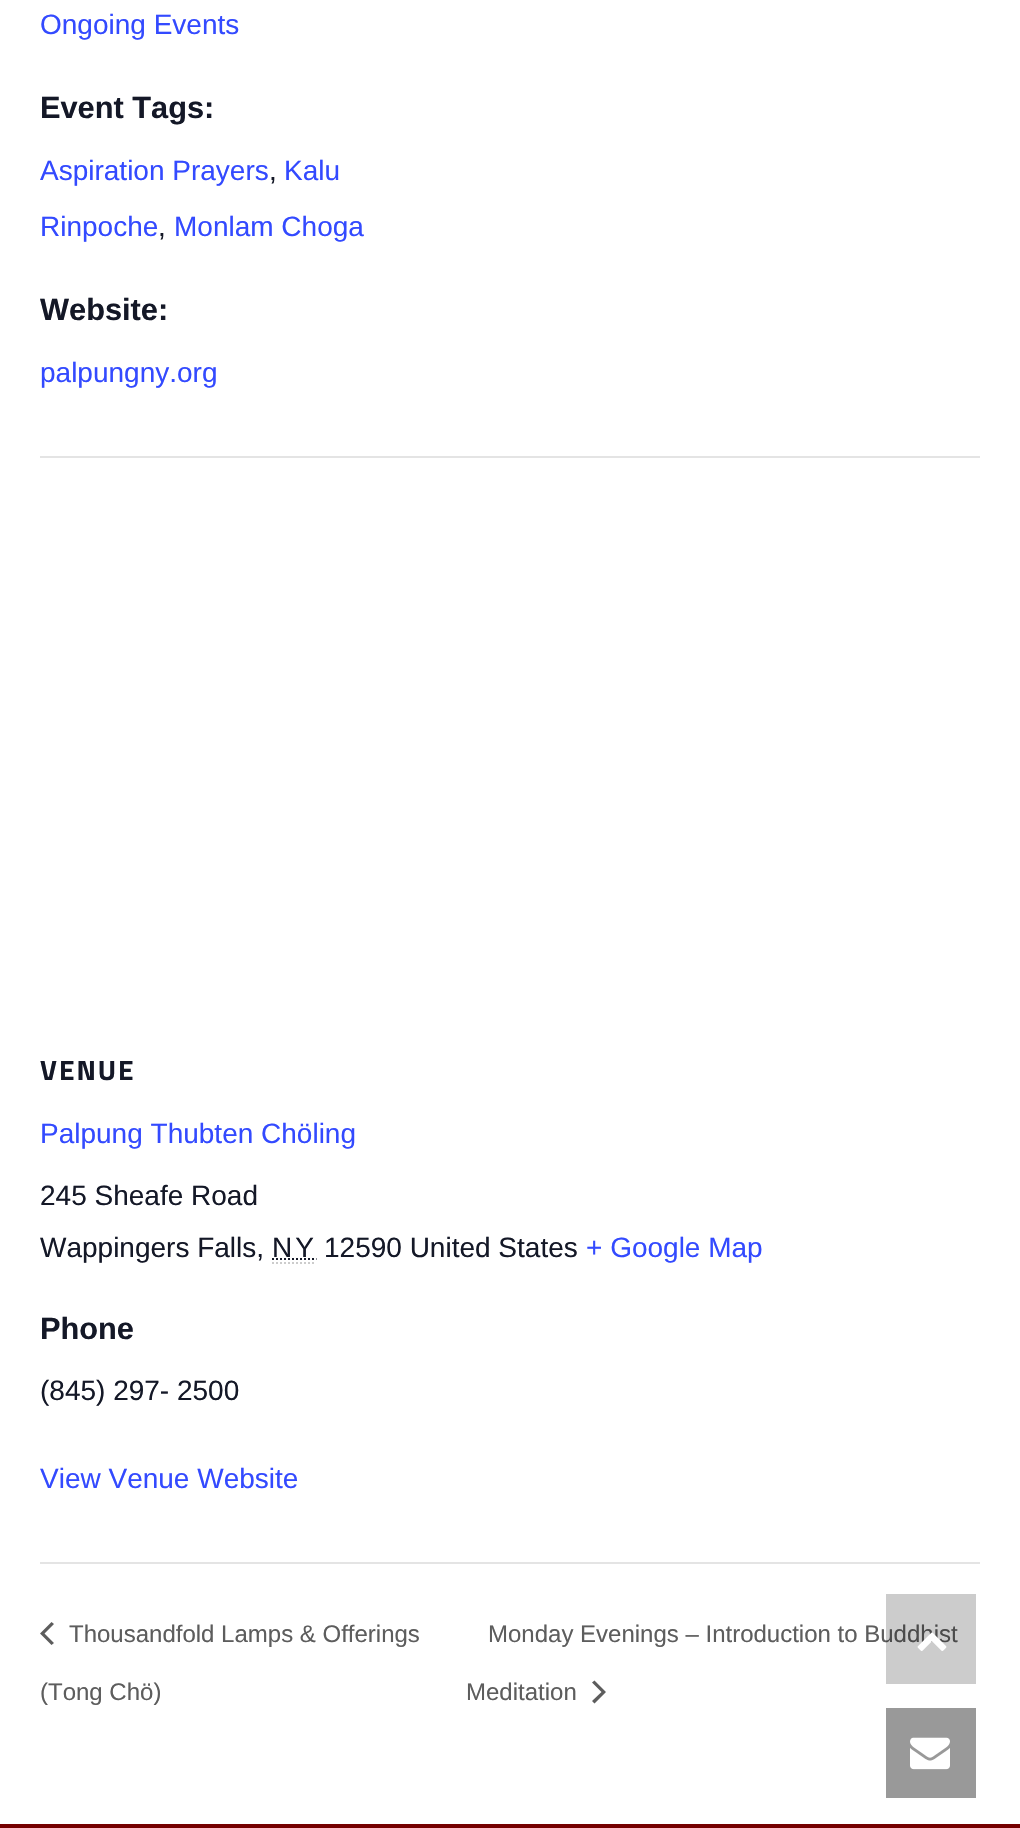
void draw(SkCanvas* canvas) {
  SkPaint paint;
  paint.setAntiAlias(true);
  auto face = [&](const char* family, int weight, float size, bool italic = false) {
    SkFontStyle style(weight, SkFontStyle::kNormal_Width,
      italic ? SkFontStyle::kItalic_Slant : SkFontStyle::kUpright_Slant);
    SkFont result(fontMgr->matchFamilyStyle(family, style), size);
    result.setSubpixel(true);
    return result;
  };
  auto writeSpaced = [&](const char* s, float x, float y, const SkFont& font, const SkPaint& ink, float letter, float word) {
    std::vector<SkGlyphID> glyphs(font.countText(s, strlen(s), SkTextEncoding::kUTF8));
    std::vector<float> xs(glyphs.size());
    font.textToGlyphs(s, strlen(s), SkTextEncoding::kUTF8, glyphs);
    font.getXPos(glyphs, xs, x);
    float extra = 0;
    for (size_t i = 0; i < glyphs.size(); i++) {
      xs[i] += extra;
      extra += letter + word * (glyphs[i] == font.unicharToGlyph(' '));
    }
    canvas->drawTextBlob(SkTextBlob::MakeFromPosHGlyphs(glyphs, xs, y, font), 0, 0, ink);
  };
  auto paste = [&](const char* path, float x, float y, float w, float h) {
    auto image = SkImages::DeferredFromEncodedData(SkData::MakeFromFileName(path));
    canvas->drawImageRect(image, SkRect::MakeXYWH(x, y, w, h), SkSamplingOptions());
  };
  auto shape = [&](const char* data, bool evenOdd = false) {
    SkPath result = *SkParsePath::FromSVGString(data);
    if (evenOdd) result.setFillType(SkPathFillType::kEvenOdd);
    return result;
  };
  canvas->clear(0xffffffff);
  paint.setColor(0xffe4e4e4);
  canvas->drawRect(SkRect::MakeXYWH(40, 456, 940, 2), paint);
  paint.setStroke(true);
  paint.setStrokeWidth(2);
  paint.setColor(0xffcccccc);
  paint.setPathEffect(SkDashPathEffect::Make({{2, 2}}, 0));
  canvas->drawPath(shape("M272 1263H316"), paint);
  paint.setPathEffect(nullptr);
  paint.setColor(0xff141827);
  paint.setPathEffect(SkDashPathEffect::Make({{2, 2}}, 0));
  canvas->drawPath(shape("M272 1259H316.5"), paint);
  paint.setPathEffect(nullptr);
  paint.setStroke(false);
  paint.setColor(0xffe4e4e4);
  canvas->drawRect(SkRect::MakeXYWH(40, 1562, 940, 2), paint);
  paint.setColor(0xff5d5d5d);
  canvas->drawPath(shape("M54 1643L51.5 1645L40 1633.5L51.5 1622L54 1624L44.5 1633.5Z"), paint);
  canvas->drawPath(shape("M592 1682.5L594.5 1680.5L606 1692L594.5 1703.5L592 1701L601.5 1692Z"), paint);
  paint.setColor(0xff750000);
  canvas->drawRect(SkRect::MakeXYWH(0, 1824, 1020, 4), paint);
  paint.setColor(0xff999999);
  canvas->drawRect(SkRect::MakeXYWH(886, 1708, 90, 90), paint);
  paste("img/2.png", 910, 1737, 40, 33);
  auto f0 = face("Liberation Sans", 400, 28);
  paint.setColor(0xff334aff);
  canvas->drawString("Ongoing Events", 40, 34, f0, paint);
  auto f1 = face("Liberation Sans", 700, 30.75f);
  paint.setColor(0xff141827);
  canvas->drawString("Event Tags:", 40, 118, f1, paint);
  paint.setColor(0xff334aff);
  canvas->drawString("Aspiration Prayers", 40, 180, f0, paint);
  paint.setColor(0xff141827);
  canvas->drawString(",", 269, 180, f0, paint);
  paint.setColor(0xff334aff);
  canvas->drawString("Kalu", 284, 180, f0, paint);
  canvas->drawString("Rinpoche", 40, 236, f0, paint);
  paint.setColor(0xff141827);
  canvas->drawString(",", 158, 236, f0, paint);
  paint.setColor(0xff334aff);
  canvas->drawString("Monlam Choga", 174, 236, f0, paint);
  paint.setColor(0xff141827);
  canvas->drawString("Website:", 40, 320, f1, paint);
  paint.setColor(0xff334aff);
  canvas->drawString("palpungny.org", 40, 382, f0, paint);
  auto f2 = face("Titillium Web", 700, 28);
  paint.setColor(0xff141827);
  writeSpaced("VENUE", 40, 1080, f2, paint, 2, 0);
  paint.setColor(0xff334aff);
  canvas->drawString("Palpung Thubten Chöling", 40, 1143, f0, paint);
  paint.setColor(0xff141827);
  canvas->drawString("245 Sheafe Road", 40, 1205, f0, paint);
  canvas->drawString("Wappingers Falls,", 40, 1257, f0, paint);
  writeSpaced("NY", 272, 1257, f0, paint, 3, 0);
  canvas->drawString("12590 United States", 324, 1257, f0, paint);
  paint.setColor(0xff334aff);
  canvas->drawString("+ Google Map", 586, 1257, f0, paint);
  paint.setColor(0xff141827);
  canvas->drawString("Phone", 40, 1339, f1, paint);
  canvas->drawString("(845) 297- 2500", 40, 1400, f0, paint);
  paint.setColor(0xff334aff);
  canvas->drawString("View Venue Website", 40, 1488, f0, paint);
  auto f3 = face("Liberation Sans", 400, 24);
  paint.setColor(0xff5d5d5d);
  {
    const struct { const char* s; float x, y; } items[] = {
      {"Thousandfold Lamps & Offerings", 69, 1642},
      {"(Tong Chö)", 40, 1700},
      {"Monday Evenings – Introduction to Buddhist", 488, 1642},
      {"Meditation", 466, 1700},
    };
    for (auto [s, x, y] : items) {
      canvas->drawString(s, x, y, f3, paint);
    }
  }
  paint.setColor(0x33000000);
  canvas->drawRect(SkRect::MakeXYWH(886, 1594, 90, 90), paint);
  paste("img/1.png", 917, 1632, 30, 19);
}
